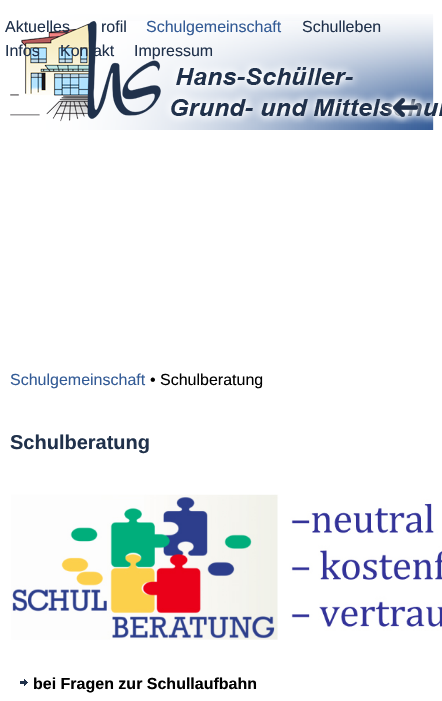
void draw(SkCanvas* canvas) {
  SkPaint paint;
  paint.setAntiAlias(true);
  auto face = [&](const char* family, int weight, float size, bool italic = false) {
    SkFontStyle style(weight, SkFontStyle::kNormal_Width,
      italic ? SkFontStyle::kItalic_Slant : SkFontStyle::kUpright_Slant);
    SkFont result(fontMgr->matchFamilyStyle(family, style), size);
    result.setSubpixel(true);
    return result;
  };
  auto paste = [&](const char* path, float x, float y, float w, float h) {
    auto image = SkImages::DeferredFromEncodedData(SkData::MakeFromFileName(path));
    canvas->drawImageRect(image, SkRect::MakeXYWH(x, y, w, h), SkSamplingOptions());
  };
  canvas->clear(0xffffffff);
  paste("img/1.png", 16, 14, 418, 116);
  paste("img/3.png", 10, 21, 432, 109);
  paste("img/2.png", 386, 91, 39, 33);
  paste("img/4.png", 11, 494, 431, 146);
  paste("img/5.png", 20, 679, 8, 7);
  auto f0 = face("Liberation Sans", 400, 16);
  paint.setColor(0xff20314b);
  canvas->drawString("Aktuelles", 5, 32, f0, paint);
  canvas->drawString("rofil", 101, 32, f0, paint);
  paint.setColor(0xff335b96);
  canvas->drawString("Schulgemeinschaft", 146, 32, f0, paint);
  paint.setColor(0xff20314b);
  {
    const struct { const char* s; float x, y; } items[] = {
      {"Schulleben", 302, 32},
      {"Infos", 5, 56},
      {"Kontakt", 60, 56},
      {"Impressum", 134, 56},
    };
    for (auto [s, x, y] : items) {
      canvas->drawString(s, x, y, f0, paint);
    }
  }
  paint.setColor(0xff335b96);
  canvas->drawString("Schulgemeinschaft", 10, 385, f0, paint);
  paint.setColor(0xff000000);
  canvas->drawString("• Schulberatung", 150, 385, f0, paint);
  auto f1 = face("Liberation Sans", 700, 20);
  paint.setColor(0xff20314b);
  canvas->drawString("Schulberatung", 10, 449, f1, paint);
  auto f2 = face("Liberation Sans", 700, 16);
  paint.setColor(0xff000000);
  canvas->drawString("bei Fragen zur Schullaufbahn", 33, 689, f2, paint);
}
